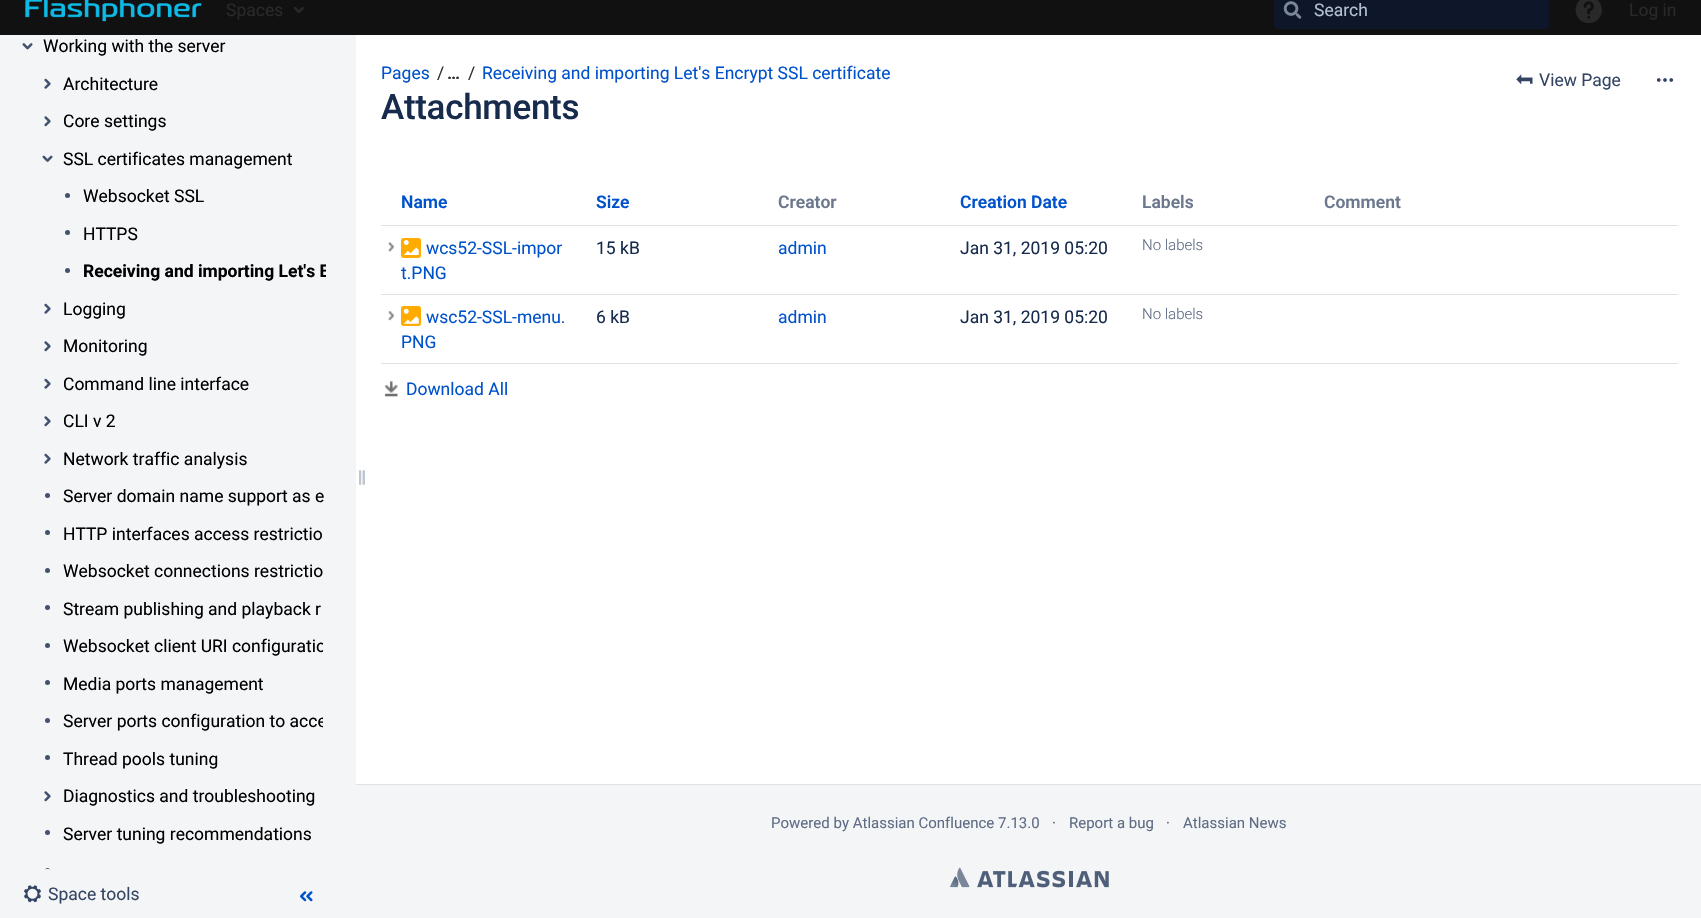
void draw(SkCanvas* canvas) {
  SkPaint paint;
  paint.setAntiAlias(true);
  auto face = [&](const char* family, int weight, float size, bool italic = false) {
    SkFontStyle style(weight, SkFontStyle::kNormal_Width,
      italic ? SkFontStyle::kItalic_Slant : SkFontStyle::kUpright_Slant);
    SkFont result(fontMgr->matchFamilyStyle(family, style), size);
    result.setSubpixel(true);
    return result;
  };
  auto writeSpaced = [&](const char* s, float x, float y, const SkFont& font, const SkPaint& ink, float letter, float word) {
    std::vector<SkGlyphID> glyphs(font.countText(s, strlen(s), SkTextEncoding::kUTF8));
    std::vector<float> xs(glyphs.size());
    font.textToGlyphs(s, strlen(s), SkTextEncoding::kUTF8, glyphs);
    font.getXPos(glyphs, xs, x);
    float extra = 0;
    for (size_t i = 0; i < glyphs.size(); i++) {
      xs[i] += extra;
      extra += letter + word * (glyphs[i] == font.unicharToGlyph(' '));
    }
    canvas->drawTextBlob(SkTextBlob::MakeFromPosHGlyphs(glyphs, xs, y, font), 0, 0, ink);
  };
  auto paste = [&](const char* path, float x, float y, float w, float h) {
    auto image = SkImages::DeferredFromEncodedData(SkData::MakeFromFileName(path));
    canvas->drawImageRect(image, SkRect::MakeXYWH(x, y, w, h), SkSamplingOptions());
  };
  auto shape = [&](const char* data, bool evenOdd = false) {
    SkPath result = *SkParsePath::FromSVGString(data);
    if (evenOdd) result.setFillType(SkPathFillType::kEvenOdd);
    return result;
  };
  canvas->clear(0xfff4f5f7);
  paint.setColor(0xff111111);
  canvas->drawRect(SkRect::MakeXYWH(0, 0, 1701, 35), paint);
  paste("img/1.png", 25, 0, 177, 22);
  paste("img/2.png", 294, 7, 10, 6);
  paint.setColor(0xff0d1729);
  canvas->drawRoundRect(SkRect::MakeXYWH(1274, -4, 275, 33), 4, 4, paint);
  paste("img/3.png", 1283, 1, 19, 18);
  paste("img/4.png", 1575, 0, 27, 23);
  paste("img/5.png", 22, 43, 11, 7);
  paste("img/6.png", 44, 78, 7, 11);
  paste("img/7.png", 44, 116, 7, 11);
  paste("img/8.png", 42, 155, 11, 7);
  paint.setColor(0xff42526e);
  canvas->drawCircle(67.5f, 195.5f, 2.5f, paint);
  canvas->drawCircle(67.5f, 232.5f, 2.5f, paint);
  canvas->drawCircle(67.5f, 270.5f, 2.5f, paint);
  paste("img/6.png", 44, 303, 7, 11);
  paste("img/7.png", 44, 341, 7, 11);
  paste("img/6.png", 44, 378, 7, 11);
  paste("img/7.png", 44, 416, 7, 11);
  paste("img/6.png", 44, 453, 7, 11);
  canvas->drawCircle(47.5f, 495.5f, 2.5f, paint);
  canvas->drawCircle(47.5f, 532.5f, 2.5f, paint);
  canvas->drawCircle(47.5f, 570.5f, 2.5f, paint);
  canvas->drawCircle(47.5f, 607.5f, 2.5f, paint);
  canvas->drawCircle(47.5f, 645.5f, 2.5f, paint);
  canvas->drawCircle(47.5f, 682.5f, 2.5f, paint);
  canvas->drawCircle(47.5f, 720.5f, 2.5f, paint);
  canvas->drawCircle(47.5f, 757.5f, 2.5f, paint);
  paste("img/7.png", 44, 791, 7, 11);
  canvas->drawCircle(47.5f, 832.5f, 2.5f, paint);
  canvas->drawPath(shape("M47.5 868C49 868 50 869 50 870.5V869H45V870.5C45 869 46 868 47.5 868Z"), paint);
  paint.setColor(0xffffffff);
  canvas->drawRect(SkRect::MakeXYWH(356, 35, 1345, 749), paint);
  paste("img/9.png", 359, 470, 6, 15);
  paste("img/10.png", 24, 885, 17, 18);
  paste("img/11.png", 300, 891, 13, 11);
  paint.setColor(0xffdfe1e6);
  canvas->drawRect(SkRect::MakeXYWH(356, 784, 1345, 1), paint);
  paste("img/12.png", 1516, 74, 17, 11);
  paste("img/13.png", 1656, 78, 18, 4);
  canvas->drawRect(SkRect::MakeXYWH(381, 225, 1297, 1), paint);
  paste("img/14.png", 388, 242, 6, 10);
  paste("img/15.png", 401, 238, 20, 20);
  canvas->drawRect(SkRect::MakeXYWH(381, 294, 1297, 1), paint);
  paste("img/16.png", 388, 311, 6, 10);
  paste("img/17.png", 401, 306, 20, 20);
  canvas->drawRect(SkRect::MakeXYWH(381, 363, 1297, 1), paint);
  paste("img/18.png", 384, 381, 14, 16);
  paste("img/19.png", 950, 867, 159, 21);
  auto f0 = face("Roboto", 400, 17.5f);
  paint.setColor(0xff292929);
  canvas->drawString("Spaces", 226, 16, f0, paint);
  paint.setColor(0xffb4c1d4);
  canvas->drawString("Search", 1314, 16, f0, paint);
  paint.setColor(0xff292929);
  canvas->drawString("Log in", 1629, 16, f0, paint);
  paint.setColor(0xff000000);
  {
    const struct { const char* s; float x, y; } items[] = {
      {"Working with the server", 43, 52},
      {"Architecture", 63, 90},
      {"Core settings", 63, 127},
      {"SSL certificates management", 63, 165},
      {"Websocket SSL", 83, 202},
      {"HTTPS", 83, 240},
    };
    for (auto [s, x, y] : items) {
      canvas->drawString(s, x, y, f0, paint);
    }
  }
  canvas->save();
  canvas->clipRect(SkRect::MakeXYWH(83, 259, 243, 25));
  auto f1 = face("Roboto", 700, 17.5f);
  canvas->drawString("Receiving and importing Let's E", 83, 277, f1, paint);
  canvas->restore();
  {
    const struct { const char* s; float x, y; } items[] = {
      {"Logging", 63, 315},
      {"Monitoring", 63, 352},
      {"Command line interface", 63, 390},
      {"CLI v 2", 63, 427},
      {"Network traffic analysis", 63, 465},
      {"Server domain name support as e", 63, 502},
      {"HTTP interfaces access restrictio", 63, 540},
      {"Websocket connections restrictio", 63, 577},
      {"Stream publishing and playback r", 63, 615},
    };
    for (auto [s, x, y] : items) {
      canvas->drawString(s, x, y, f0, paint);
    }
  }
  canvas->save();
  canvas->clipRect(SkRect::MakeXYWH(63, 634, 260, 25));
  canvas->drawString("Websocket client URI configuratio", 63, 652, f0, paint);
  canvas->restore();
  canvas->drawString("Media ports management", 63, 690, f0, paint);
  canvas->save();
  canvas->clipRect(SkRect::MakeXYWH(63, 709, 260, 25));
  canvas->drawString("Server ports configuration to acce", 63, 727, f0, paint);
  canvas->restore();
  {
    const struct { const char* s; float x, y; } items[] = {
      {"Thread pools tuning", 63, 765},
      {"Diagnostics and troubleshooting", 63, 802},
      {"Server tuning recommendations", 63, 840},
    };
    for (auto [s, x, y] : items) {
      canvas->drawString(s, x, y, f0, paint);
    }
  }
  paint.setColor(0xff344563);
  canvas->drawString("Space tools", 48, 900, f0, paint);
  paint.setColor(0xff0052cc);
  canvas->drawString("Pages", 381, 79, f0, paint);
  paint.setColor(0xff333333);
  canvas->drawString("/", 437, 79, f0, paint);
  canvas->drawString("…", 447, 79, f1, paint);
  canvas->drawString("/", 468, 79, f0, paint);
  paint.setColor(0xff0052cc);
  canvas->drawString("Receiving and importing Let's Encrypt SSL certificate", 482, 79, f0, paint);
  auto f2 = face("Roboto", 500, 35);
  paint.setColor(0xff172b4d);
  writeSpaced("Attachments", 381, 119, f2, paint, -0.3f, 0);
  paint.setColor(0xff344563);
  canvas->drawString("View Page", 1539, 86, f0, paint);
  auto f3 = face("Roboto", 600, 17.5f);
  paint.setColor(0xff0052cc);
  canvas->drawString("Name", 401, 208, f3, paint);
  canvas->drawString("Size", 596, 208, f3, paint);
  paint.setColor(0xff6b778c);
  canvas->drawString("Creator", 778, 208, f3, paint);
  paint.setColor(0xff0052cc);
  canvas->drawString("Creation Date", 960, 208, f3, paint);
  paint.setColor(0xff6b778c);
  canvas->drawString("Labels", 1142, 208, f3, paint);
  canvas->drawString("Comment", 1324, 208, f3, paint);
  paint.setColor(0xff0052cc);
  canvas->drawString("wcs52-SSL-impor", 426, 254, f0, paint);
  canvas->drawString("t.PNG", 401, 279, f0, paint);
  paint.setColor(0xff172b4d);
  canvas->drawString("15 kB", 596, 254, f0, paint);
  paint.setColor(0xff0052cc);
  canvas->drawString("admin", 778, 254, f0, paint);
  paint.setColor(0xff172b4d);
  canvas->drawString("Jan 31, 2019 05:20", 960, 254, f0, paint);
  auto f4 = face("Roboto", 300, 15);
  paint.setColor(0xff5e6c84);
  canvas->drawString("No labels", 1142, 250, f4, paint);
  paint.setColor(0xff0052cc);
  canvas->drawString("wsc52-SSL-menu.", 426, 323, f0, paint);
  canvas->drawString("PNG", 401, 348, f0, paint);
  paint.setColor(0xff172b4d);
  canvas->drawString("6 kB", 596, 323, f0, paint);
  paint.setColor(0xff0052cc);
  canvas->drawString("admin", 778, 323, f0, paint);
  paint.setColor(0xff172b4d);
  canvas->drawString("Jan 31, 2019 05:20", 960, 323, f0, paint);
  paint.setColor(0xff5e6c84);
  canvas->drawString("No labels", 1142, 319, f4, paint);
  paint.setColor(0xff0052cc);
  canvas->drawString("Download All", 406, 395, f0, paint);
  auto f5 = face("Roboto", 400, 15);
  paint.setColor(0xff5e6c84);
  {
    const struct { const char* s; float x, y; } items[] = {
      {"Powered by Atlassian Confluence 7.13.0", 771, 828},
      {"·", 1052, 828},
      {"Report a bug", 1069, 828},
      {"·", 1166, 828},
      {"Atlassian News", 1183, 828},
    };
    for (auto [s, x, y] : items) {
      canvas->drawString(s, x, y, f5, paint);
    }
  }
}
